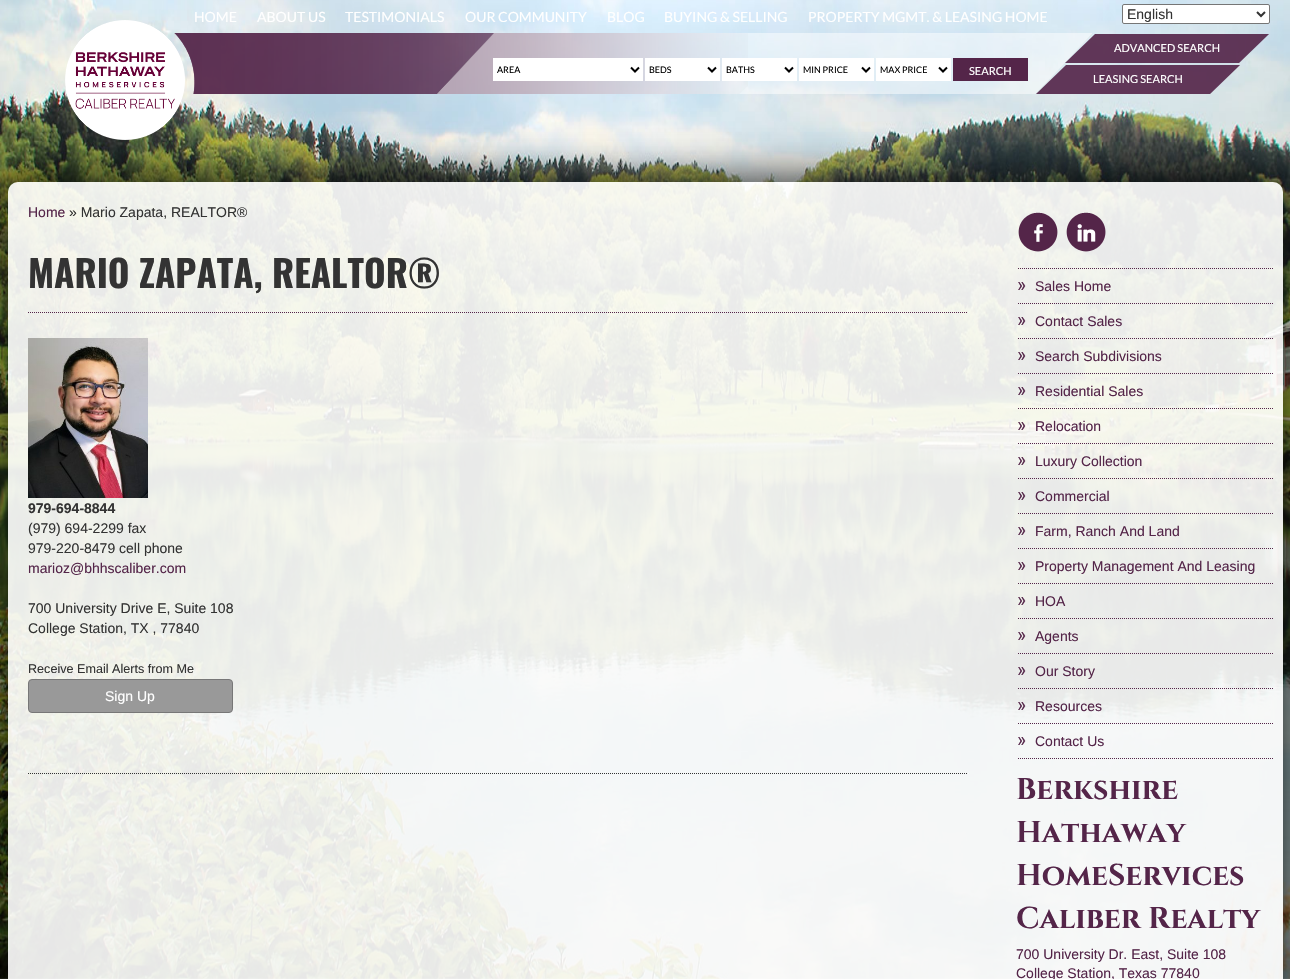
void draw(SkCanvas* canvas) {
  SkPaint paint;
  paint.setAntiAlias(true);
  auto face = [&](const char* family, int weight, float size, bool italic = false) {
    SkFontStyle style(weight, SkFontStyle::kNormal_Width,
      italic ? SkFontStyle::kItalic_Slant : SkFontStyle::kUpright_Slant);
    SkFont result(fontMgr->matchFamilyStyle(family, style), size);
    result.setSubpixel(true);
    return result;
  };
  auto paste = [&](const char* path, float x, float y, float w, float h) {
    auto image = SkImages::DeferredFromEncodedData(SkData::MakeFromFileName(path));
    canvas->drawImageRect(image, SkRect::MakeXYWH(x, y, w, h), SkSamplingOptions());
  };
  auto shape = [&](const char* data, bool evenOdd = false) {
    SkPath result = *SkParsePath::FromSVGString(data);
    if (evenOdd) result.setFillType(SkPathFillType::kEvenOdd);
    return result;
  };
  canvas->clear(0xffffffff);
  paste("img/1.png", 0, 0, 1290, 979);
  paste("img/3.png", 174, 33, 574, 61);
  canvas->save();
  canvas->clipPath(shape("M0 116H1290V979H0ZM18 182H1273C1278.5 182 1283 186.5 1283 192V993C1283 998.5 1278.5 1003 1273 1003H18C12.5 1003 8 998.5 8 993V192C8 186.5 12.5 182 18 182Z", true), true);
  paint.setColor(0xbf000000);
  paint.setMaskFilter(SkMaskFilter::MakeBlur(kNormal_SkBlurStyle, 20));
  canvas->drawRoundRect(SkRect::MakeXYWH(3, 177, 1285, 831), 15, 15, paint);
  paint.setMaskFilter(nullptr);
  canvas->restore();
  paste("img/2.png", 65, 20, 120, 120);
  paint.setColor(0xffffffff);
  canvas->drawRoundRect(SkRect::MakeXYWH(1122.5f, 4.5f, 147, 19), 1.5f, 1.5f, paint);
  paint.setStroke(true);
  paint.setStrokeWidth(1);
  paint.setColor(0xff767676);
  canvas->drawRoundRect(SkRect::MakeXYWH(1122.5f, 4.5f, 147, 19), 1.5f, 1.5f, paint);
  paint.setStrokeWidth(2);
  paint.setColor(0xff333333);
  canvas->drawPath(shape("M1257 12L1261 16L1265 12"), paint);
  paste("img/4.png", 437, 33, 655, 61);
  paint.setStroke(false);
  paint.setColor(0xffffffff);
  canvas->drawRect(SkRect::MakeXYWH(493, 58, 150, 23), paint);
  paint.setStroke(true);
  paint.setColor(0xff000000);
  canvas->drawPath(shape("M631 67.5L635 71.5L639 67.5"), paint);
  paint.setStroke(false);
  paint.setColor(0xffffffff);
  canvas->drawRect(SkRect::MakeXYWH(645, 58, 75, 23), paint);
  paint.setStroke(true);
  paint.setColor(0xff000000);
  canvas->drawPath(shape("M708 67.5L712 71.5L716 67.5"), paint);
  paint.setStroke(false);
  paint.setColor(0xffffffff);
  canvas->drawRect(SkRect::MakeXYWH(722, 58, 75, 23), paint);
  paint.setStroke(true);
  paint.setColor(0xff000000);
  canvas->drawPath(shape("M785 67.5L789 71.5L793 67.5"), paint);
  paint.setStroke(false);
  paint.setColor(0xffffffff);
  canvas->drawRect(SkRect::MakeXYWH(799, 58, 75, 23), paint);
  paint.setStroke(true);
  paint.setColor(0xff000000);
  canvas->drawPath(shape("M862 67.5L866 71.5L870 67.5"), paint);
  paint.setStroke(false);
  paint.setColor(0xffffffff);
  canvas->drawRect(SkRect::MakeXYWH(876, 58, 75, 23), paint);
  paint.setStroke(true);
  paint.setColor(0xff000000);
  canvas->drawPath(shape("M939 67.5L943 71.5L947 67.5"), paint);
  paint.setStroke(false);
  paint.setColor(0xff542549);
  canvas->drawRect(SkRect::MakeXYWH(953, 58, 75, 23), paint);
  paste("img/5.png", 1065, 34, 204, 29);
  paste("img/6.png", 1036, 65, 204, 29);
  paint.setColor(0xe6ffffff);
  canvas->drawRoundRect(SkRect::MakeXYWH(8, 182, 1275, 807), 10, 10, paint);
  paint.setStroke(true);
  paint.setStrokeWidth(1);
  paint.setColor(0xff333333);
  paint.setPathEffect(SkDashPathEffect::Make({{1, 1}}, 0));
  canvas->drawPath(shape("M28 773.5H968"), paint);
  paint.setPathEffect(nullptr);
  paint.setColor(0xff542549);
  paint.setPathEffect(SkDashPathEffect::Make({{1, 1}}, 0));
  canvas->drawPath(shape("M28 312.5H968"), paint);
  paint.setPathEffect(nullptr);
  paste("img/7.png", 28, 338, 120, 160);
  paint.setStroke(false);
  paint.setColor(0xff999999);
  canvas->drawRoundRect(SkRect::MakeXYWH(28.5f, 679.5f, 204, 33), 3.5f, 3.5f, paint);
  paint.setStroke(true);
  paint.setColor(0xff777777);
  canvas->drawRoundRect(SkRect::MakeXYWH(28.5f, 679.5f, 204, 33), 3.5f, 3.5f, paint);
  paint.setColor(0xff542549);
  paint.setPathEffect(SkDashPathEffect::Make({{1, 1}}, 0));
  canvas->drawPath(shape("M1018 268.5H1274"), paint);
  paint.setPathEffect(nullptr);
  paste("img/8.png", 1018, 212, 40, 40);
  paste("img/9.png", 1066, 212, 40, 40);
  paint.setPathEffect(SkDashPathEffect::Make({{1, 1}}, 0));
  canvas->drawPath(shape("M1018 303.5H1273"), paint);
  paint.setPathEffect(nullptr);
  paste("img/10.png", 1018, 282, 8, 8);
  paint.setPathEffect(SkDashPathEffect::Make({{1, 1}}, 0));
  canvas->drawPath(shape("M1018 338.5H1273"), paint);
  paint.setPathEffect(nullptr);
  paste("img/11.png", 1018, 317, 8, 8);
  paint.setPathEffect(SkDashPathEffect::Make({{1, 1}}, 0));
  canvas->drawPath(shape("M1018 373.5H1273"), paint);
  paint.setPathEffect(nullptr);
  paste("img/12.png", 1018, 352, 8, 8);
  paint.setPathEffect(SkDashPathEffect::Make({{1, 1}}, 0));
  canvas->drawPath(shape("M1018 408.5H1273"), paint);
  paint.setPathEffect(nullptr);
  paste("img/13.png", 1018, 387, 8, 8);
  paint.setPathEffect(SkDashPathEffect::Make({{1, 1}}, 0));
  canvas->drawPath(shape("M1018 443.5H1273"), paint);
  paint.setPathEffect(nullptr);
  paste("img/14.png", 1018, 422, 8, 8);
  paint.setPathEffect(SkDashPathEffect::Make({{1, 1}}, 0));
  canvas->drawPath(shape("M1018 478.5H1273"), paint);
  paint.setPathEffect(nullptr);
  paste("img/15.png", 1018, 457, 8, 8);
  paint.setPathEffect(SkDashPathEffect::Make({{1, 1}}, 0));
  canvas->drawPath(shape("M1018 513.5H1273"), paint);
  paint.setPathEffect(nullptr);
  paste("img/16.png", 1018, 492, 8, 8);
  paint.setPathEffect(SkDashPathEffect::Make({{1, 1}}, 0));
  canvas->drawPath(shape("M1018 548.5H1273"), paint);
  paint.setPathEffect(nullptr);
  paste("img/17.png", 1018, 527, 8, 8);
  paint.setPathEffect(SkDashPathEffect::Make({{1, 1}}, 0));
  canvas->drawPath(shape("M1018 583.5H1273"), paint);
  paint.setPathEffect(nullptr);
  paste("img/18.png", 1018, 562, 8, 8);
  paint.setPathEffect(SkDashPathEffect::Make({{1, 1}}, 0));
  canvas->drawPath(shape("M1018 618.5H1273"), paint);
  paint.setPathEffect(nullptr);
  paste("img/19.png", 1018, 597, 8, 8);
  paint.setPathEffect(SkDashPathEffect::Make({{1, 1}}, 0));
  canvas->drawPath(shape("M1018 653.5H1273"), paint);
  paint.setPathEffect(nullptr);
  paste("img/20.png", 1018, 632, 8, 8);
  paint.setPathEffect(SkDashPathEffect::Make({{1, 1}}, 0));
  canvas->drawPath(shape("M1018 688.5H1273"), paint);
  paint.setPathEffect(nullptr);
  paste("img/21.png", 1018, 667, 8, 8);
  paint.setPathEffect(SkDashPathEffect::Make({{1, 1}}, 0));
  canvas->drawPath(shape("M1018 723.5H1273"), paint);
  paint.setPathEffect(nullptr);
  paste("img/22.png", 1018, 702, 8, 8);
  paint.setPathEffect(SkDashPathEffect::Make({{1, 1}}, 0));
  canvas->drawPath(shape("M1018 758.5H1273"), paint);
  paint.setPathEffect(nullptr);
  paste("img/23.png", 1018, 737, 8, 8);
  auto f0 = face("Lato", 400, 14);
  paint.setStroke(false);
  paint.setColor(0xffffffff);
  {
    const struct { const char* s; float x, y; } items[] = {
      {"HOME", 194, 22},
      {"ABOUT US", 257, 22},
      {"TESTIMONIALS", 345, 22},
      {"OUR COMMUNITY", 465, 22},
      {"BLOG", 607, 22},
      {"BUYING & SELLING", 664, 22},
      {"PROPERTY MGMT. & LEASING HOME", 808, 22},
    };
    for (auto [s, x, y] : items) {
      canvas->drawString(s, x, y, f0, paint);
    }
  }
  auto f1 = face("Liberation Sans", 400, 14);
  paint.setColor(0xff333333);
  canvas->drawString("English", 1127, 19, f1, paint);
  auto f2 = face("Lato", 400, 9);
  paint.setColor(0xff000000);
  {
    const struct { const char* s; float x, y; } items[] = {
      {"AREA", 497, 73},
      {"BEDS", 649, 73},
      {"BATHS", 726, 73},
      {"MIN PRICE", 803, 73},
      {"MAX PRICE", 880, 73},
    };
    for (auto [s, x, y] : items) {
      canvas->drawString(s, x, y, f2, paint);
    }
  }
  auto f3 = face("Lato", 400, 11);
  paint.setColor(0xffffffff);
  {
    const struct { const char* s; float x, y; } items[] = {
      {"SEARCH", 969, 75},
      {"ADVANCED SEARCH", 1114, 52},
      {"LEASING SEARCH", 1093, 83},
    };
    for (auto [s, x, y] : items) {
      canvas->drawString(s, x, y, f3, paint);
    }
  }
  paint.setColor(0xff542549);
  canvas->drawString("Home", 28, 217, f1, paint);
  paint.setColor(0xff333333);
  canvas->drawString("» Mario Zapata, REALTOR®", 69, 217, f1, paint);
  auto f4 = face("Oswald", 700, 37);
  canvas->drawString("MARIO ZAPATA, REALTOR®", 28, 288, f4, paint);
  auto f5 = face("Liberation Sans", 700, 14);
  canvas->drawString("979-694-8844", 28, 513, f5, paint);
  canvas->drawString("(979) 694-2299 fax", 28, 533, f1, paint);
  canvas->drawString("979-220-8479 cell phone", 28, 553, f1, paint);
  paint.setColor(0xff542549);
  canvas->drawString("marioz@bhhscaliber.com", 28, 573, f1, paint);
  paint.setColor(0xff333333);
  canvas->drawString("700 University Drive E, Suite 108", 28, 613, f1, paint);
  canvas->drawString("College Station, TX , 77840", 28, 633, f1, paint);
  auto f6 = face("Liberation Sans", 400, 12.6f);
  canvas->drawString("Receive Email Alerts from Me", 28, 673, f6, paint);
  paint.setColor(0xffffffff);
  canvas->drawString("Sign Up", 105, 701, f1, paint);
  paint.setColor(0xff542549);
  {
    const struct { const char* s; float x, y; } items[] = {
      {"Sales Home", 1035, 291},
      {"Contact Sales", 1035, 326},
      {"Search Subdivisions", 1035, 361},
      {"Residential Sales", 1035, 396},
      {"Relocation", 1035, 431},
      {"Luxury Collection", 1035, 466},
      {"Commercial", 1035, 501},
      {"Farm, Ranch And Land", 1035, 536},
      {"Property Management And Leasing", 1035, 571},
      {"HOA", 1035, 606},
      {"Agents", 1035, 641},
      {"Our Story", 1035, 676},
      {"Resources", 1035, 711},
      {"Contact Us", 1035, 746},
    };
    for (auto [s, x, y] : items) {
      canvas->drawString(s, x, y, f1, paint);
    }
  }
  auto f7 = face("Cinzel", 700, 30);
  {
    const struct { const char* s; float x, y; } items[] = {
      {"Berkshire", 1016, 799},
      {"Hathaway", 1016, 842},
      {"HomeServices", 1016, 885},
      {"Caliber Realty", 1016, 928},
    };
    for (auto [s, x, y] : items) {
      canvas->drawString(s, x, y, f7, paint);
    }
  }
  canvas->drawString("700 University Dr. East, Suite 108", 1016, 959, f1, paint);
  canvas->drawString("College Station, Texas 77840", 1016, 978, f1, paint);
}
